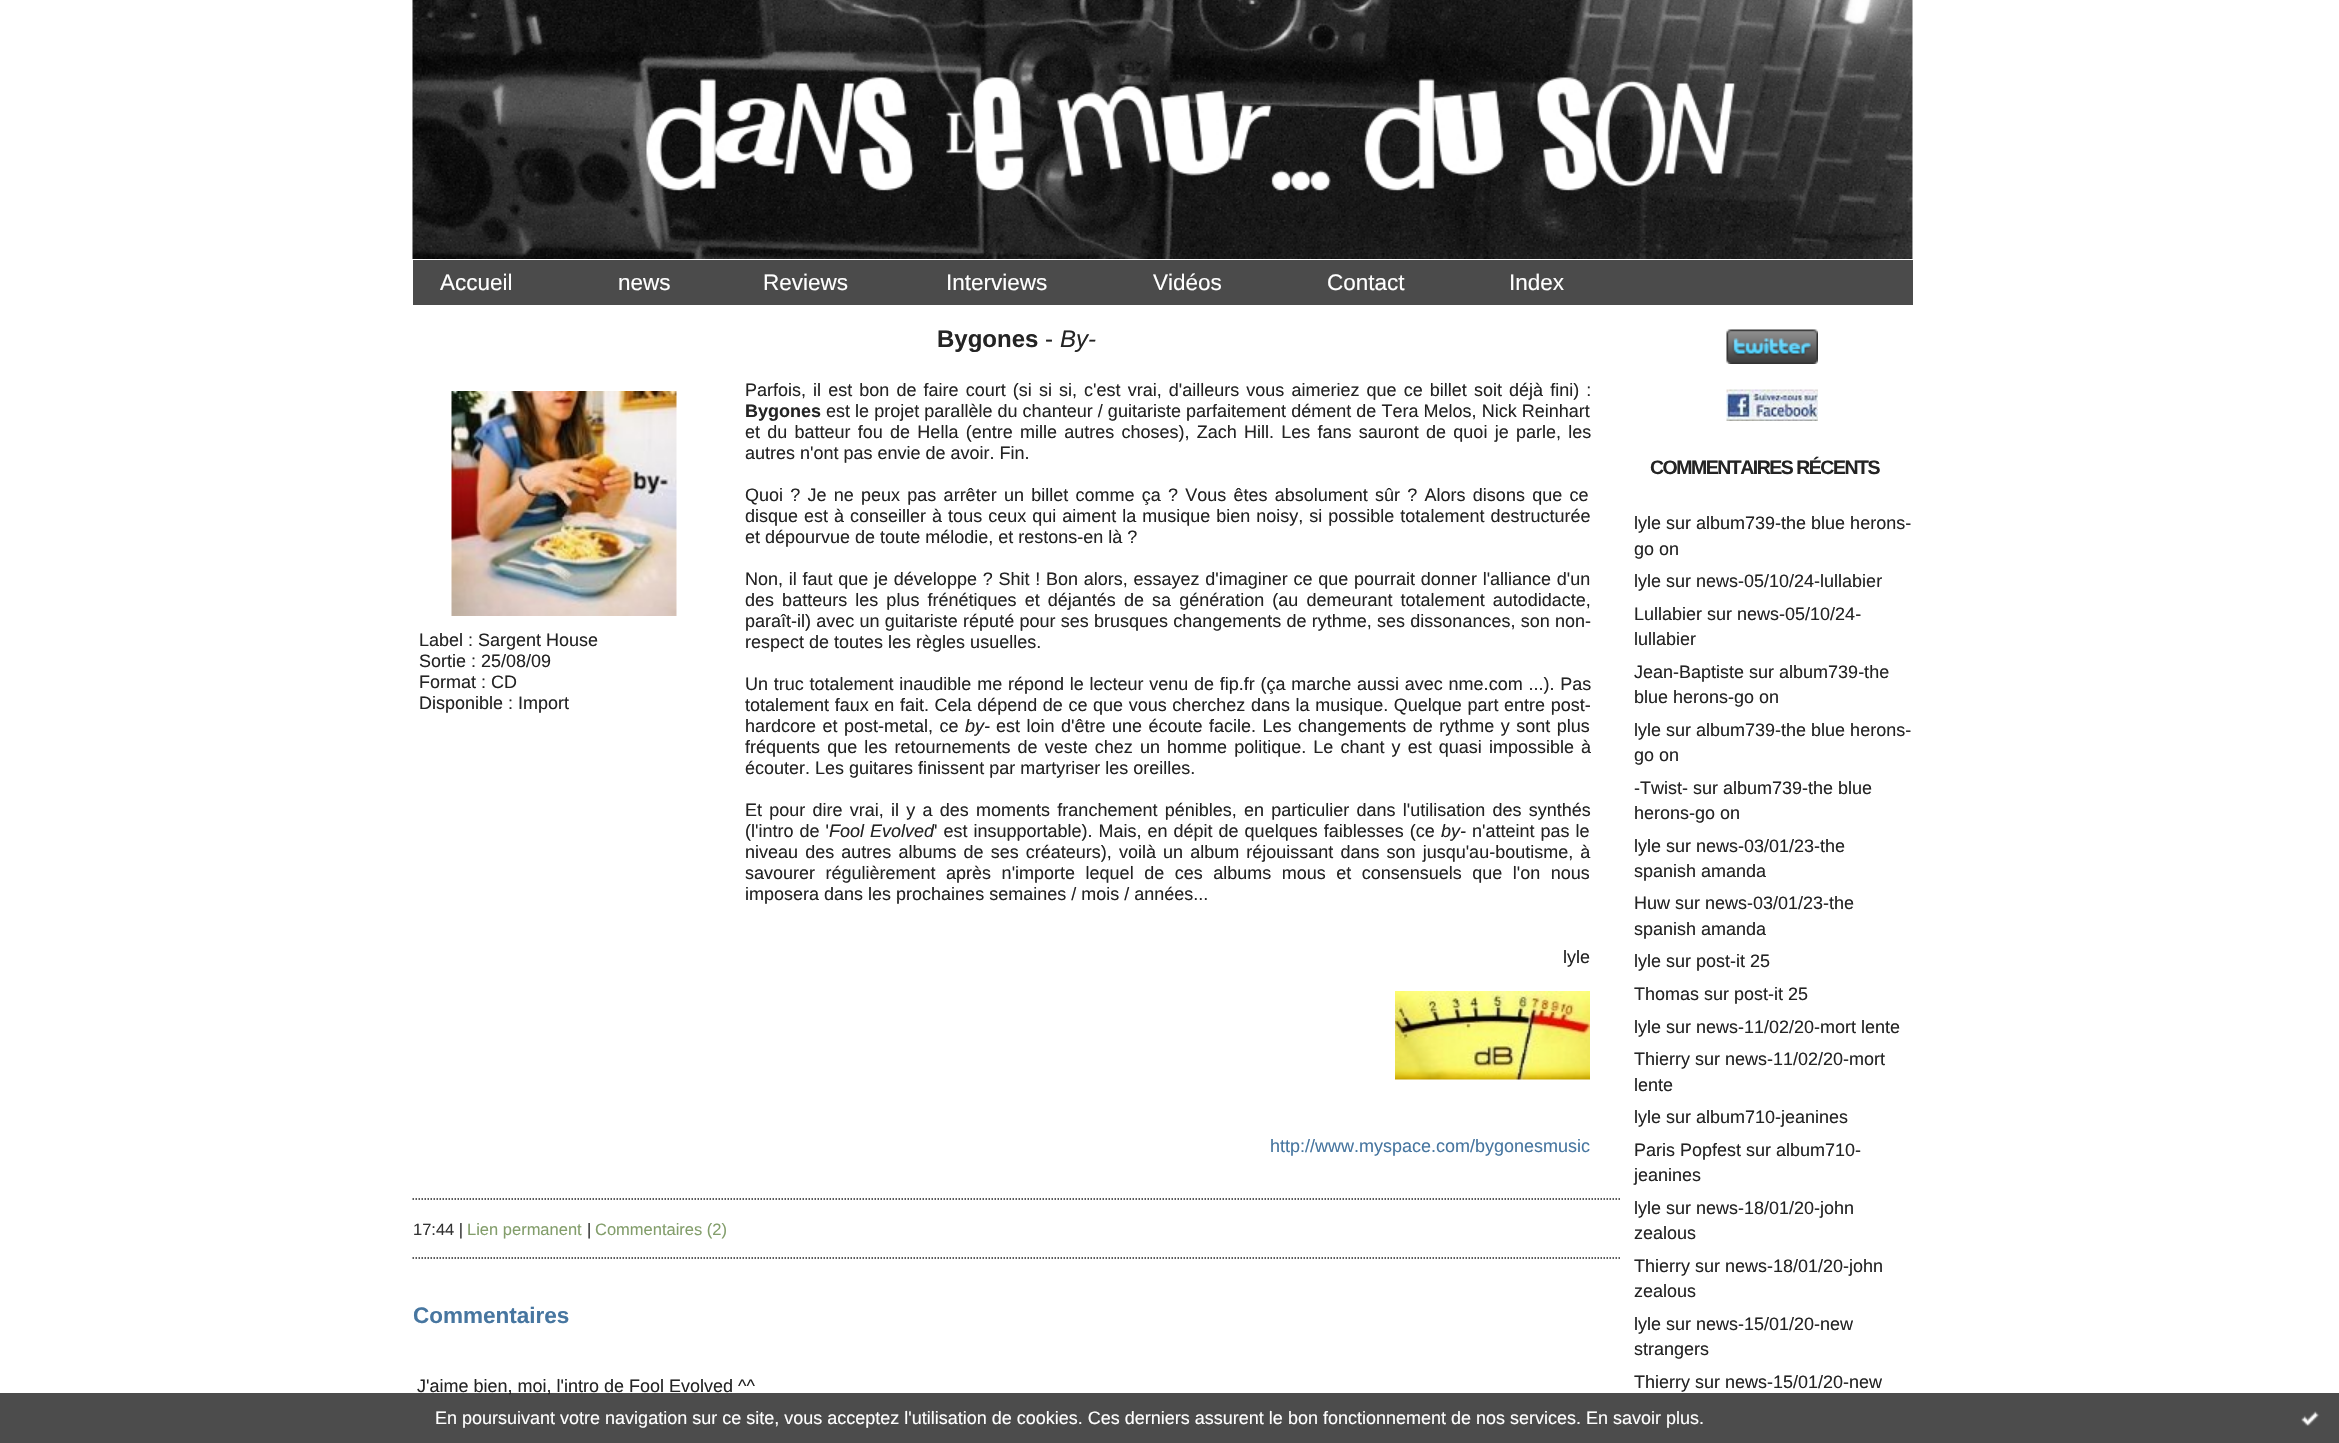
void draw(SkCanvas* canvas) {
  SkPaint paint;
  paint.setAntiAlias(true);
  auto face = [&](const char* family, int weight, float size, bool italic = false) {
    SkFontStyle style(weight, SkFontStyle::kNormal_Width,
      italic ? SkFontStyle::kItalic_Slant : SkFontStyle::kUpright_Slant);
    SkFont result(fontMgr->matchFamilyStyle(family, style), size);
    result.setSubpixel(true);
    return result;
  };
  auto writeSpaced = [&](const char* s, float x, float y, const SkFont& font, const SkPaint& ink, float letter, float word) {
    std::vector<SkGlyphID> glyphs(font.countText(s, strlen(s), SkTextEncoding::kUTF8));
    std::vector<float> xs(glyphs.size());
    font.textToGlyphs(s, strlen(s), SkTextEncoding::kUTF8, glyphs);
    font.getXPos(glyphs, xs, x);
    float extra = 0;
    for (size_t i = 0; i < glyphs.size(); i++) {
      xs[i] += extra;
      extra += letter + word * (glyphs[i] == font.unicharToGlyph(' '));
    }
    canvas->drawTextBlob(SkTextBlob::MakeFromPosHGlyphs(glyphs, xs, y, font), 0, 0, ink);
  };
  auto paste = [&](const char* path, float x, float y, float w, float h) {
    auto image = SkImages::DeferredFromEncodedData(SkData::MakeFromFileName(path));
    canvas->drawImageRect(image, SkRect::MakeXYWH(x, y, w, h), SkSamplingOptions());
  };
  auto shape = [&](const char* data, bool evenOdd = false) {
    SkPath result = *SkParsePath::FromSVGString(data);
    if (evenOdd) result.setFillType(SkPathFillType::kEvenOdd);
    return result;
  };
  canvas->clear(0xffffffff);
  paste("img/1.png", 412, 0, 1501, 259);
  paint.setColor(0xff4b4b4b);
  canvas->drawRect(SkRect::MakeXYWH(413, 260, 1500, 45), paint);
  paste("img/2.png", 451, 391, 226, 225);
  paste("img/3.png", 1395, 991, 195, 89);
  paint.setStroke(true);
  paint.setStrokeWidth(1.5f);
  paint.setColor(0xff242424);
  paint.setPathEffect(SkDashPathEffect::Make({{1.5f, 1.5f}}, 0));
  canvas->drawPath(shape("M412.5 1199H1620"), paint);
  paint.setPathEffect(nullptr);
  paint.setPathEffect(SkDashPathEffect::Make({{1.5f, 1.5f}}, 0));
  canvas->drawPath(shape("M412.5 1258H1620"), paint);
  paint.setPathEffect(nullptr);
  paste("img/4.png", 1726, 329, 92, 35);
  paste("img/5.png", 1726, 389, 92, 32);
  auto f0 = face("Liberation Sans", 400, 22.5f);
  paint.setStroke(false);
  paint.setColor(0xffffffff);
  {
    const struct { const char* s; float x, y; } items[] = {
      {"Accueil", 440, 290},
      {"news", 618, 290},
      {"Reviews", 763, 290},
      {"Interviews", 946, 290},
      {"Vidéos", 1153, 290},
      {"Contact", 1327, 290},
      {"Index", 1509, 290},
    };
    for (auto [s, x, y] : items) {
      canvas->drawString(s, x, y, f0, paint);
    }
  }
  auto f1 = face("Liberation Sans", 700, 24);
  paint.setColor(0xff242424);
  canvas->drawString("Bygones", 937, 347, f1, paint);
  auto f2 = face("Liberation Sans", 400, 24);
  canvas->drawString("-", 1045, 347, f2, paint);
  auto f3 = face("Liberation Sans", 400, 24, true);
  canvas->drawString("By-", 1060, 347, f3, paint);
  auto f4 = face("Liberation Sans", 400, 18);
  {
    const struct { const char* s; float x, y; } items[] = {
      {"Label : Sargent House", 419, 646},
      {"Sortie : 25/08/09", 419, 667},
      {"Format : CD", 419, 688},
      {"Disponible : Import", 419, 709},
    };
    for (auto [s, x, y] : items) {
      canvas->drawString(s, x, y, f4, paint);
    }
  }
  writeSpaced("Parfois, il est bon de faire court (si si si, c'est vrai, d'ailleurs vous aimeriez que ce billet soit déjà fini) :", 745, 396, f4, paint, 0, 2.1f);
  auto f5 = face("Liberation Sans", 700, 18);
  canvas->drawString("Bygones", 745, 417, f5, paint);
  writeSpaced("est le projet parallèle du chanteur / guitariste parfaitement dément de Tera Melos, Nick Reinhart", 826, 417, f4, paint, 0, 0.1f);
  writeSpaced("et du batteur fou de Hella (entre mille autres choses), Zach Hill. Les fans sauront de quoi je parle, les", 745, 438, f4, paint, 0, 2.25f);
  canvas->drawString("autres n'ont pas envie de avoir. Fin.", 745, 459, f4, paint);
  writeSpaced("Quoi ? Je ne peux pas arrêter un billet comme ça ? Vous êtes absolument sûr ? Alors disons que ce", 745, 501, f4, paint, 0, 2.25f);
  writeSpaced("disque est à conseiller à tous ceux qui aiment la musique bien noisy, si possible totalement destructurée", 745, 522, f4, paint, 0, 1);
  canvas->drawString("et dépourvue de toute mélodie, et restons-en là ?", 745, 543, f4, paint);
  writeSpaced("Non, il faut que je développe ? Shit ! Bon alors, essayez d'imaginer ce que pourrait donner l'alliance d'un", 745, 585, f4, paint, 0, 0.75f);
  writeSpaced("des batteurs les plus frénétiques et déjantés de sa génération (au demeurant totalement autodidacte,", 745, 606, f4, paint, 0, 3.1f);
  writeSpaced("paraît-il) avec un guitariste réputé pour ses brusques changements de rythme, ses dissonances, son non-", 745, 627, f4, paint, 0, 0.25f);
  canvas->drawString("respect de toutes les règles usuelles.", 745, 648, f4, paint);
  writeSpaced("Un truc totalement inaudible me répond le lecteur venu de fip.fr (ça marche aussi avec nme.com ...). Pas", 745, 690, f4, paint, 0, 0.75f);
  writeSpaced("totalement faux en fait. Cela dépend de ce que vous cherchez dans la musique. Quelque part entre post-", 745, 711, f4, paint, 0, 0.6f);
  writeSpaced("hardcore et post-metal, ce", 745, 732, f4, paint, 0, 1.5f);
  auto f6 = face("Liberation Sans", 400, 18, true);
  canvas->drawString("by-", 965, 732, f6, paint);
  writeSpaced("est loin d'être une écoute facile. Les changements de rythme y sont plus", 996, 732, f4, paint, 0, 1.5f);
  writeSpaced("fréquents que les retournements de veste chez un homme politique. Le chant y est quasi impossible à", 745, 753, f4, paint, 0, 2.1f);
  canvas->drawString("écouter. Les guitares finissent par martyriser les oreilles.", 745, 774, f4, paint);
  writeSpaced("Et pour dire vrai, il y a des moments franchement pénibles, en particulier dans l'utilisation des synthés", 745, 816, f4, paint, 0, 2.25f);
  writeSpaced("(l'intro de '", 745, 837, f4, paint, 0, 1);
  writeSpaced("Fool Evolved", 829, 837, f6, paint, 0, 1);
  writeSpaced("' est insupportable). Mais, en dépit de quelques faiblesses (ce", 934, 837, f4, paint, 0, 1);
  canvas->drawString("by-", 1441, 837, f6, paint);
  writeSpaced("n'atteint pas le", 1472, 837, f4, paint, 0, 1);
  writeSpaced("niveau des autres albums de ses créateurs), voilà un album réjouissant dans son jusqu'au-boutisme, à", 745, 858, f4, paint, 0, 2.1f);
  writeSpaced("savourer régulièrement après n'importe lequel de ces albums mous et consensuels que l'on nous", 745, 879, f4, paint, 0, 5.5f);
  canvas->drawString("imposera dans les prochaines semaines / mois / années...", 745, 900, f4, paint);
  canvas->drawString("lyle", 1563, 963, f4, paint);
  paint.setColor(0xff4776a0);
  canvas->drawString("http://www.myspace.com/bygonesmusic", 1270, 1152, f4, paint);
  auto f7 = face("Liberation Sans", 400, 16.5f);
  paint.setColor(0xff333333);
  canvas->drawString("17:44 |", 413, 1235, f7, paint);
  paint.setColor(0xff839e6b);
  canvas->drawString("Lien permanent", 467, 1235, f7, paint);
  paint.setColor(0xff333333);
  canvas->drawString("|", 587, 1235, f7, paint);
  paint.setColor(0xff839e6b);
  canvas->drawString("Commentaires (2)", 595, 1235, f7, paint);
  auto f8 = face("Liberation Sans", 700, 22.5f);
  paint.setColor(0xff4776a0);
  canvas->drawString("Commentaires", 413, 1323, f8, paint);
  paint.setColor(0xff242424);
  canvas->drawString("J'aime bien, moi, l'intro de Fool Evolved ^^", 417, 1392, f4, paint);
  auto f9 = face("Liberation Sans", 700, 19.5f);
  writeSpaced("COMMENTAIRES RÉCENTS", 1650, 474, f9, paint, -1.5f, 0);
  {
    const struct { const char* s; float x, y; } items[] = {
      {"lyle sur album739-the blue herons-", 1634, 529},
      {"go on", 1634, 555},
      {"lyle sur news-05/10/24-lullabier", 1634, 587},
      {"Lullabier sur news-05/10/24-", 1634, 620},
      {"lullabier", 1634, 645},
      {"Jean-Baptiste sur album739-the", 1634, 678},
      {"blue herons-go on", 1634, 703},
      {"lyle sur album739-the blue herons-", 1634, 736},
      {"go on", 1634, 761},
      {"-Twist- sur album739-the blue", 1634, 794},
      {"herons-go on", 1634, 819},
      {"lyle sur news-03/01/23-the", 1634, 852},
      {"spanish amanda", 1634, 877},
      {"Huw sur news-03/01/23-the", 1634, 909},
      {"spanish amanda", 1634, 935},
      {"lyle sur post-it 25", 1634, 967},
      {"Thomas sur post-it 25", 1634, 1000},
      {"lyle sur news-11/02/20-mort lente", 1634, 1033},
      {"Thierry sur news-11/02/20-mort", 1634, 1065},
      {"lente", 1634, 1091},
      {"lyle sur album710-jeanines", 1634, 1123},
      {"Paris Popfest sur album710-", 1634, 1156},
      {"jeanines", 1634, 1181},
      {"lyle sur news-18/01/20-john", 1634, 1214},
      {"zealous", 1634, 1239},
      {"Thierry sur news-18/01/20-john", 1634, 1272},
      {"zealous", 1634, 1297},
      {"lyle sur news-15/01/20-new", 1634, 1330},
      {"strangers", 1634, 1355},
      {"Thierry sur news-15/01/20-new", 1634, 1388},
    };
    for (auto [s, x, y] : items) {
      canvas->drawString(s, x, y, f4, paint);
    }
  }
  paint.setColor(0xb3000000);
  canvas->drawRect(SkRect::MakeXYWH(0, 1393, 2339, 50), paint);
  paint.setColor(0xffffffff);
  canvas->drawString("En poursuivant votre navigation sur ce site, vous acceptez l'utilisation de cookies. Ces derniers assurent le bon fonctionnement de nos services. En savoir plus.", 435, 1424, f4, paint);
  paste("img/6.png", 2301, 1411, 19, 15);
}
